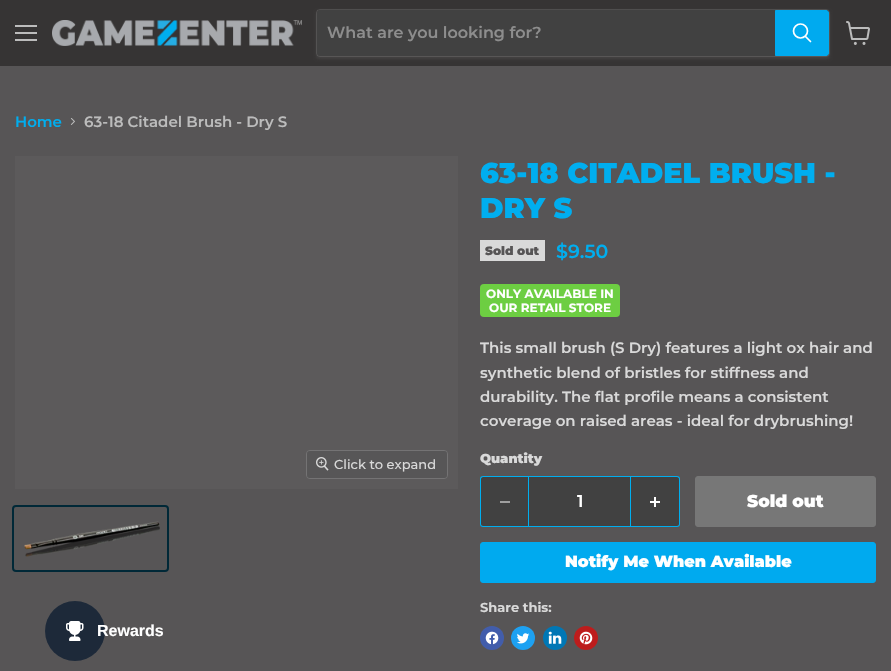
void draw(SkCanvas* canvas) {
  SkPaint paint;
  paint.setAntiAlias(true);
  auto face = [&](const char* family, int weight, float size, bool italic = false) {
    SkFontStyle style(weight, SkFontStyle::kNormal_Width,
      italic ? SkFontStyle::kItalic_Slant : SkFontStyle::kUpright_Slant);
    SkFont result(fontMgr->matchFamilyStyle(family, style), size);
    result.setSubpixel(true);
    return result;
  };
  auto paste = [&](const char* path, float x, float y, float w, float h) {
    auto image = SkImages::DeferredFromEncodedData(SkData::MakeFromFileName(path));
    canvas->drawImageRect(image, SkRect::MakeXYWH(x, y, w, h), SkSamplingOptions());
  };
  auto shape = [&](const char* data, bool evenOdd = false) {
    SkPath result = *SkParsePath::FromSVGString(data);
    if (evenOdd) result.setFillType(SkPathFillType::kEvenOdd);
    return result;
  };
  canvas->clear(0xff575556);
  {
    const struct { float x, y, w, h; SkColor color; } items[] = {
      {0, 0, 891, 66, 0xff363434},
      {15, 25, 22, 2, 0xffbcbcbc},
      {15, 32, 22, 2, 0xffbcbcbc},
      {15, 39, 22, 2, 0xffbcbcbc},
    };
    for (auto [x, y, w, h, color] : items) {
      paint.setColor(color);
      canvas->drawRect(SkRect::MakeXYWH(x, y, w, h), paint);
    }
  }
  paste("img/1.png", 52, 20, 250, 26);
  paint.setColor(0x1cabaaab);
  paint.setMaskFilter(SkMaskFilter::MakeBlur(kNormal_SkBlurStyle, 1.5f));
  canvas->drawRoundRect(SkRect::MakeXYWH(316, 11, 514, 48), 4, 4, paint);
  paint.setMaskFilter(nullptr);
  paint.setStroke(true);
  paint.setStrokeWidth(1);
  paint.setColor(0x33abaaab);
  canvas->drawRoundRect(SkRect::MakeXYWH(316.5f, 9.5f, 513, 47), 3.5f, 3.5f, paint);
  paint.setStroke(false);
  paint.setColor(0xff414141);
  canvas->drawPath(shape("M320 10H775V56H320C318.5 56 317 54.5 317 53V13C317 11.5 318.5 10 320 10Z"), paint);
  paint.setColor(0xff00aaef);
  canvas->drawPath(shape("M775.5 10.5H826C827.5 10.5 828.5 11.5 828.5 13V53C828.5 54.5 827.5 55.5 826 55.5H775.5Z"), paint);
  paint.setStroke(true);
  canvas->drawPath(shape("M775.5 10.5H826C827.5 10.5 828.5 11.5 828.5 13V53C828.5 54.5 827.5 55.5 826 55.5H775.5Z"), paint);
  paint.setStrokeWidth(1.7f);
  paint.setStrokeCap(SkPaint::kRound_Cap);
  paint.setColor(0xffffffff);
  canvas->drawPath(shape("M810.5 41.5L805.5 36.5"), paint);
  paint.setStrokeCap(SkPaint::kButt_Cap);
  canvas->drawCircle(800.5f, 31, 7, paint);
  paste("img/2.png", 846, 21, 24, 24);
  paste("img/3.png", 70, 118, 5, 7);
  paint.setStroke(false);
  paint.setColor(0xff5c5a5b);
  canvas->drawRect(SkRect::MakeXYWH(15, 156, 443, 333), paint);
  paint.setStroke(true);
  paint.setStrokeWidth(1);
  paint.setColor(0xff747374);
  canvas->drawRoundRect(SkRect::MakeXYWH(306.5f, 450.5f, 141, 28), 3.5f, 3.5f, paint);
  paint.setStroke(false);
  paint.setColor(0xe6575556);
  canvas->drawRoundRect(SkRect::MakeXYWH(307, 451, 140, 27), 3, 3, paint);
  paste("img/4.png", 316, 457, 13, 14);
  paint.setStroke(true);
  paint.setStrokeWidth(2);
  paint.setColor(0xff002837);
  canvas->drawRoundRect(SkRect::MakeXYWH(13, 506, 155, 65), 3, 3, paint);
  paste("img/5.png", 24, 521, 136, 36);
  paint.setStroke(false);
  paint.setColor(0xffd9d9d9);
  canvas->drawRect(SkRect::MakeXYWH(480, 240, 65, 21), paint);
  paint.setColor(0xff6dce42);
  canvas->drawRoundRect(SkRect::MakeXYWH(480, 284, 140, 33), 4, 4, paint);
  paint.setColor(0xff414141);
  canvas->drawPath(shape("M483 476H528V527H483C481.5 527 480 525.5 480 524V479C480 477.5 481.5 476 483 476Z"), paint);
  paint.setColor(0xff00aeef);
  canvas->drawPath(shape("M483 476H528V527H483C481 527 480 526 480 524V479C480 477 481 476 483 476ZM483 477H528V526H483C482 526 481 525 481 524V479C481 478 482 477 483 477Z", true), paint);
  paint.setColor(0xffa0a0a0);
  canvas->drawRect(SkRect::MakeXYWH(500, 501, 10, 2), paint);
  paint.setColor(0xff414141);
  canvas->drawRect(SkRect::MakeXYWH(528.5f, 476.5f, 102, 50), paint);
  paint.setStroke(true);
  paint.setStrokeWidth(1);
  paint.setColor(0xff00aeef);
  canvas->drawRect(SkRect::MakeXYWH(528.5f, 476.5f, 102, 50), paint);
  paint.setStroke(false);
  paint.setColor(0xff414141);
  canvas->drawPath(shape("M631 476H677C678.5 476 680 477.5 680 479V524C680 525.5 678.5 527 677 527H631Z"), paint);
  paint.setColor(0xff00aeef);
  canvas->drawPath(shape("M631 476H677C679 476 680 477 680 479V524C680 526 679 527 677 527H631ZM631 477H677C678 477 679 478 679 479V524C679 525 678 526 677 526H631Z", true), paint);
  paste("img/6.png", 650, 497, 10, 10);
  paint.setColor(0xff777777);
  canvas->drawRoundRect(SkRect::MakeXYWH(695.5f, 476.5f, 180, 50), 2.5f, 2.5f, paint);
  paint.setStroke(true);
  canvas->drawRoundRect(SkRect::MakeXYWH(695.5f, 476.5f, 180, 50), 2.5f, 2.5f, paint);
  paint.setStroke(false);
  paint.setColor(0xff00aaef);
  canvas->drawRoundRect(SkRect::MakeXYWH(480.5f, 542.5f, 395, 40), 2.5f, 2.5f, paint);
  paint.setStroke(true);
  canvas->drawRoundRect(SkRect::MakeXYWH(480.5f, 542.5f, 395, 40), 2.5f, 2.5f, paint);
  paint.setStroke(false);
  paint.setColor(0xff425dab);
  canvas->drawCircle(492, 638, 12, paint);
  paste("img/7.png", 485, 631, 14, 14);
  paint.setColor(0xff1da1f2);
  canvas->drawCircle(523, 638, 12, paint);
  paste("img/8.png", 517, 633, 13, 11);
  paint.setColor(0xff0077b5);
  canvas->drawCircle(555, 638, 12, paint);
  paste("img/9.png", 548, 631, 14, 13);
  paint.setColor(0xffbd1c1c);
  canvas->drawCircle(586, 638, 12, paint);
  paste("img/10.png", 579, 631, 14, 14);
  paint.setColor(0xff1d2939);
  canvas->drawCircle(75, 631, 30, paint);
  paste("img/11.png", 66, 621, 18, 20);
  auto f0 = face("Montserrat", 600, 16);
  paint.setColor(0xff8d8d8d);
  canvas->drawString("What are you looking for?", 327, 38, f0, paint);
  auto f1 = face("Montserrat", 600, 15);
  paint.setColor(0xff00aeef);
  canvas->drawString("Home", 15, 127, f1, paint);
  paint.setColor(0xffbcbcbc);
  canvas->drawString("63-18 Citadel Brush - Dry S", 84, 127, f1, paint);
  auto f2 = face("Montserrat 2", 100, 13);
  paint.setColor(0xffd9d9d9);
  canvas->drawString("Click to expand", 334, 469, f2, paint);
  auto f3 = face("Montserrat", 100, 28.5f);
  paint.setColor(0xff00aeef);
  canvas->drawString("63-18 CITADEL BRUSH -", 480, 183, f3, paint);
  canvas->drawString("DRY S", 480, 218, f3, paint);
  auto f4 = face("Montserrat", 100, 12);
  paint.setColor(0xff575556);
  canvas->drawString("Sold out", 485, 255, f4, paint);
  auto f5 = face("Montserrat", 600, 19);
  paint.setColor(0xff00aeef);
  canvas->drawString("$9.50", 556, 258, f5, paint);
  auto f6 = face("Montserrat", 700, 12);
  paint.setColor(0xffffffff);
  canvas->drawString("ONLY AVAILABLE IN", 486, 298, f6, paint);
  canvas->drawString("OUR RETAIL STORE", 489, 312, f6, paint);
  paint.setColor(0xffd9d9d9);
  {
    const struct { const char* s; float x, y; } items[] = {
      {"This small brush (S Dry) features a light ox hair and", 480, 353},
      {"synthetic blend of bristles for stiffness and", 480, 378},
      {"durability. The flat profile means a consistent", 480, 402},
      {"coverage on raised areas - ideal for drybrushing!", 480, 426},
    };
    for (auto [s, x, y] : items) {
      canvas->drawString(s, x, y, f1, paint);
    }
  }
  auto f7 = face("Montserrat", 100, 13);
  canvas->drawString("Quantity", 480, 463, f7, paint);
  auto f8 = face("Montserrat", 600, 17);
  paint.setColor(0xffffffff);
  canvas->drawString("1", 577, 507, f8, paint);
  auto f9 = face("Montserrat", 100, 17);
  canvas->drawString("Sold out", 747, 507, f9, paint);
  auto f10 = face("Montserrat", 100, 16);
  canvas->drawString("Notify Me When Available", 565, 567, f10, paint);
  auto f11 = face("Montserrat", 700, 13);
  paint.setColor(0xffd9d9d9);
  canvas->drawString("Share this:", 480, 612, f11, paint);
  auto f12 = face("Liberation Sans", 700, 16);
  paint.setColor(0xffffffff);
  canvas->drawString("Rewards", 97, 636, f12, paint);
}
